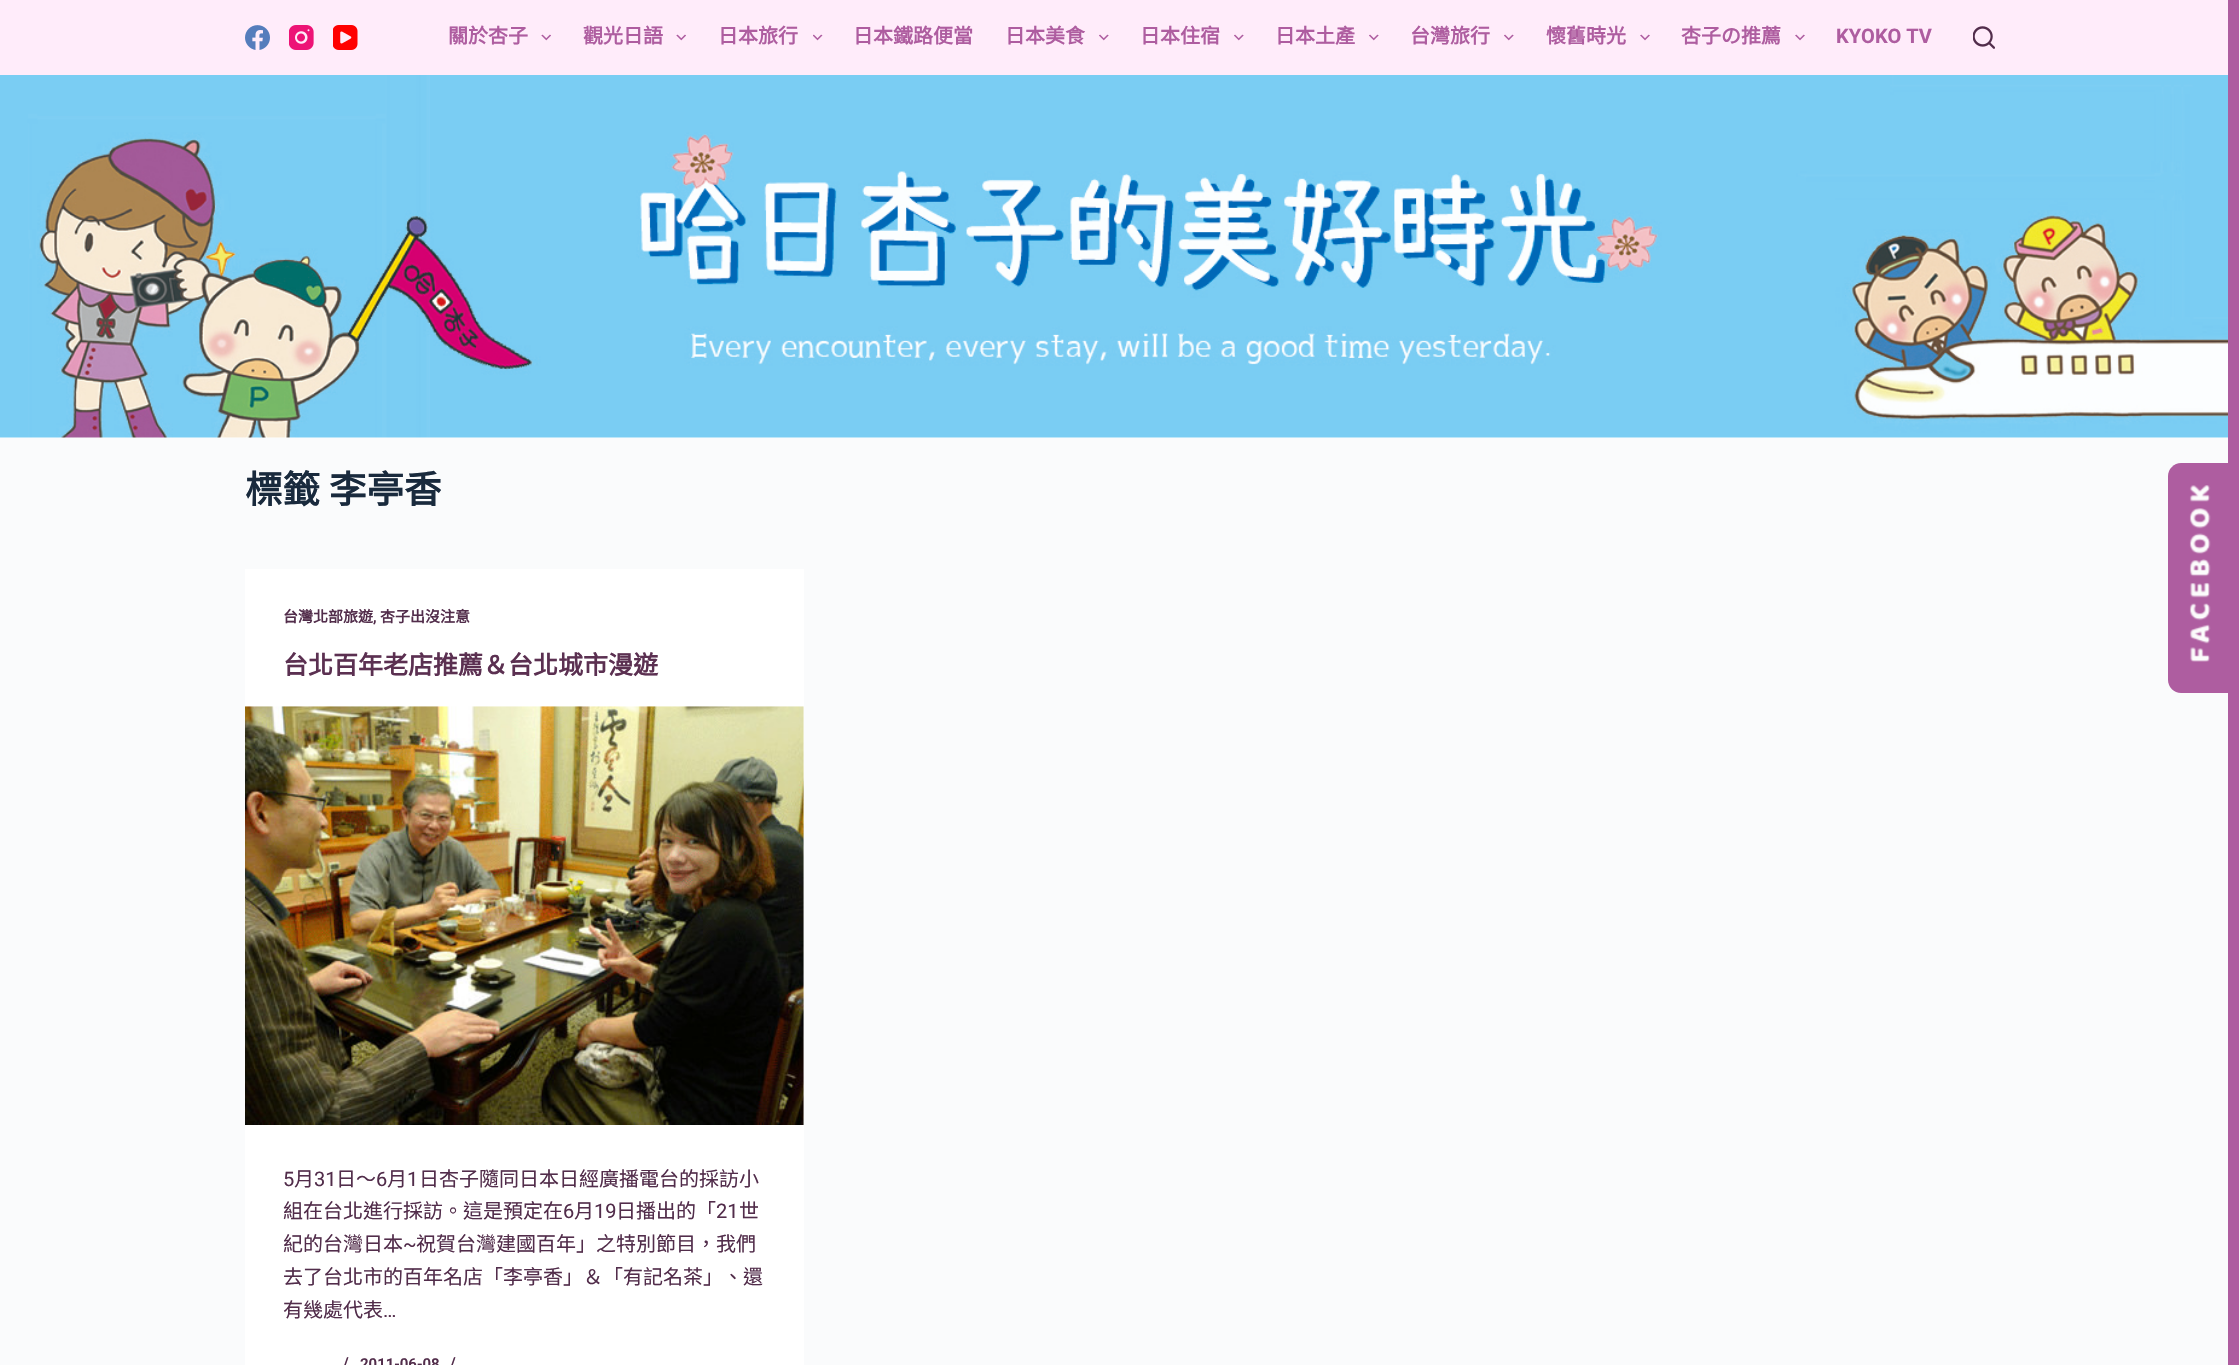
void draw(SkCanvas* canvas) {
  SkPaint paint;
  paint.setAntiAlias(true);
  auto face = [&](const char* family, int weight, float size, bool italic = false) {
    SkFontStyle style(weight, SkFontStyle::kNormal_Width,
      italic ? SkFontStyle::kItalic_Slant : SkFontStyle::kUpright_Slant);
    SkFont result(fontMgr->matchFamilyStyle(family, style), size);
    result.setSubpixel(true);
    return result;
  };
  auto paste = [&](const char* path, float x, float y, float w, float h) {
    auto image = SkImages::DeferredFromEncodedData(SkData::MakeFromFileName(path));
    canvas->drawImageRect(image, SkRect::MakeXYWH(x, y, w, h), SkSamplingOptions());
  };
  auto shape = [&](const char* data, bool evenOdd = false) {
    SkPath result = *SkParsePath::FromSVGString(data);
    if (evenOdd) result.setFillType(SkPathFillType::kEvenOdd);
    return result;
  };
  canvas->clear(0xfffafbfc);
  paint.setColor(0xffffecfa);
  canvas->drawRect(SkRect::MakeXYWH(0, 0, 2228, 75), paint);
  paste("img/1.png", 245, 25, 25, 25);
  paste("img/2.png", 289, 25, 25, 25);
  paste("img/3.png", 333, 25, 25, 25);
  paste("img/4.png", 541, 34, 10, 7);
  paste("img/4.png", 676, 34, 10, 7);
  paste("img/5.png", 813, 34, 10, 7);
  paste("img/6.png", 1099, 34, 10, 7);
  paste("img/6.png", 1234, 34, 10, 7);
  paste("img/6.png", 1369, 34, 10, 7);
  paste("img/6.png", 1504, 34, 10, 7);
  paste("img/7.png", 1640, 34, 10, 7);
  paste("img/7.png", 1795, 34, 10, 7);
  paste("img/8.png", 1973, 26, 22, 23);
  paint.setColor(0xffffffff);
  canvas->drawRect(SkRect::MakeXYWH(0, 437, 2228, 1), paint);
  paste("img/9.png", 0, 75, 2228, 363);
  canvas->drawRect(SkRect::MakeXYWH(245, 569, 559, 796), paint);
  paste("img/10.png", 245, 706, 559, 419);
  paint.setColor(0xffae5da0);
  canvas->drawPath(shape("M2181 463H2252V693H2181C2174 693 2168 687 2168 680V476C2168 469 2174 463 2181 463Z"), paint);
  canvas->drawRect(SkRect::MakeXYWH(2228, 0, 11, 1365), paint);
  paste("img/11.png", 2189, 485, 22, 177);
  auto f0 = face("Noto Sans CJK TC", 700, 20);
  {
    const struct { const char* s; float x, y; } items[] = {
      {"關於杏子", 448, 43},
      {"觀光日語", 583, 43},
      {"日本旅行", 718, 43},
      {"日本鐵路便當", 853, 43},
      {"日本美食", 1005, 43},
      {"日本住宿", 1140, 43},
      {"日本土產", 1275, 43},
      {"台灣旅行", 1410, 43},
      {"懷舊時光", 1546, 43},
      {"杏子の推薦", 1681, 43},
    };
    for (auto [s, x, y] : items) {
      canvas->drawString(s, x, y, f0, paint);
    }
  }
  auto f1 = face("Roboto", 700, 20);
  canvas->drawString("KYOKO TV", 1836, 43, f1, paint);
  auto f2 = face("Noto Sans CJK TC", 700, 37.5f);
  paint.setColor(0xff192a3d);
  canvas->drawString("標籤", 245, 503, f2, paint);
  canvas->drawString("李亭香", 329, 503, f2, paint);
  auto f3 = face("Noto Sans CJK TC", 700, 15);
  paint.setColor(0xff522d4b);
  canvas->drawString("台灣北部旅遊", 283, 622, f3, paint);
  auto f4 = face("Roboto", 600, 15);
  canvas->drawString(",", 373, 622, f4, paint);
  canvas->drawString("杏子出沒注意", 380, 622, f3, paint);
  auto f5 = face("Noto Sans CJK TC", 700, 25);
  paint.setColor(0xff5b3051);
  canvas->drawString("台北百年老店推薦＆台北城市漫遊", 283, 674, f5, paint);
  auto f6 = face("Roboto", 400, 20);
  paint.setColor(0xff522d4b);
  canvas->drawString("5", 283, 1186, f6, paint);
  auto f7 = face("Noto Sans CJK TC", 400, 20);
  canvas->drawString("月", 294, 1186, f7, paint);
  canvas->drawString("31", 314, 1186, f6, paint);
  canvas->drawString("日～", 336, 1186, f7, paint);
  canvas->drawString("6", 376, 1186, f6, paint);
  canvas->drawString("月", 387, 1186, f7, paint);
  canvas->drawString("1", 407, 1186, f6, paint);
  canvas->drawString("日杏子隨同日本日經廣播電台的採訪小", 419, 1186, f7, paint);
  canvas->drawString("組在台北進行採訪。這是預定在", 283, 1218, f7, paint);
  canvas->drawString("6", 563, 1218, f6, paint);
  canvas->drawString("月", 574, 1218, f7, paint);
  canvas->drawString("19", 594, 1218, f6, paint);
  canvas->drawString("日播出的「", 616, 1218, f7, paint);
  canvas->drawString("21", 716, 1218, f6, paint);
  canvas->drawString("世", 739, 1218, f7, paint);
  canvas->drawString("紀的台灣日本", 283, 1251, f7, paint);
  canvas->drawString("~", 403, 1251, f6, paint);
  {
    const struct { const char* s; float x, y; } items[] = {
      {"祝賀台灣建國百年」之特別節目，我們", 416, 1251},
      {"去了台北市的百年名店「李亭香」＆「有記名茶」、還", 283, 1284},
      {"有幾處代表", 283, 1317},
    };
    for (auto [s, x, y] : items) {
      canvas->drawString(s, x, y, f7, paint);
    }
  }
  canvas->drawString("…", 383, 1317, f6, paint);
  {
    const struct { const char* s; float x, y; } items[] = {
      {"/", 343, 1368},
      {"2011-06-08", 360, 1369},
      {"/", 450, 1368},
    };
    for (auto [s, x, y] : items) {
      canvas->drawString(s, x, y, f4, paint);
    }
  }
}
